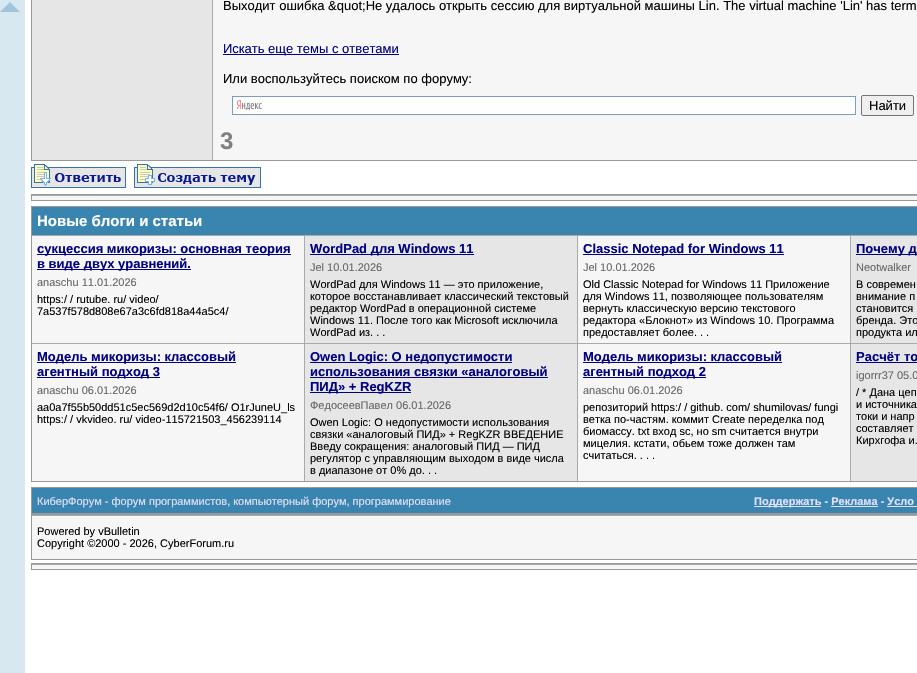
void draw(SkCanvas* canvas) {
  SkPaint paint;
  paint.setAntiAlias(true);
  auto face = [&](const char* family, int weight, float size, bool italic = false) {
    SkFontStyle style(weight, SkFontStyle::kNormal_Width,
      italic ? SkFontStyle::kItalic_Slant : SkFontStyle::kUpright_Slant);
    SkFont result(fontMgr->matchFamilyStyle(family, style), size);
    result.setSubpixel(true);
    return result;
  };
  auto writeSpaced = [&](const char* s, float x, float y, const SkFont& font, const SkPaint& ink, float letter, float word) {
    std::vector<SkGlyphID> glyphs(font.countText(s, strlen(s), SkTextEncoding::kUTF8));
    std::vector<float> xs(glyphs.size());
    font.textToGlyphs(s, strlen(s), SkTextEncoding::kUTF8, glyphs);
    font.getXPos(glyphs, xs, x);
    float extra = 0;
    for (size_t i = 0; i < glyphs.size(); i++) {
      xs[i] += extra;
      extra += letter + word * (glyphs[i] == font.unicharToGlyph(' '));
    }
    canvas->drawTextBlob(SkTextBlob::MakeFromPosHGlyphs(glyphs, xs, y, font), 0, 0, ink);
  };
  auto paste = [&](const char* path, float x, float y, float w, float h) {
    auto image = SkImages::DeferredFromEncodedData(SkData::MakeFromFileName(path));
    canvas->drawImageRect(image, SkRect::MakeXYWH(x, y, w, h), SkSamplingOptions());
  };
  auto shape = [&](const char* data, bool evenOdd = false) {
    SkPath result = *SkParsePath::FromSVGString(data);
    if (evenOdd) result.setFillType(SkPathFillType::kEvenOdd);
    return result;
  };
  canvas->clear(0xffffffff);
  paint.setColor(0xffd7e8f1);
  canvas->drawRect(SkRect::MakeXYWH(0, 0, 25, 673), paint);
  paint.setColor(0xffa0c4d9);
  canvas->drawPath(shape("M20 12H0L10 2Z"), paint);
  {
    const struct { float x, y, w, h; SkColor color; } items[] = {
      {31, 160, 886, 1, 0xff999999},
      {31, 0, 1, 161, 0xff999999},
      {32, 0, 180, 160, 0xffe6e6e6},
      {212, 0, 1, 160, 0xffaaaaaa},
      {213, 0, 704, 160, 0xfff6f6f6},
      {223, 54, 176, 1, 0xff000080},
      {233, 97, 622, 17, 0xffffffff},
    };
    for (auto [x, y, w, h, color] : items) {
      paint.setColor(color);
      canvas->drawRect(SkRect::MakeXYWH(x, y, w, h), paint);
    }
  }
  paste("img/1.png", 236, 100, 26, 11);
  paint.setStroke(true);
  paint.setStrokeWidth(1);
  paint.setColor(0xff7f9db9);
  canvas->drawRect(SkRect::MakeXYWH(232.5f, 96.5f, 623, 18), paint);
  paint.setStroke(false);
  paint.setColor(0xffefefef);
  canvas->drawRoundRect(SkRect::MakeXYWH(861.5f, 95.5f, 52, 20), 1.5f, 1.5f, paint);
  paint.setStroke(true);
  paint.setColor(0xff767676);
  canvas->drawRoundRect(SkRect::MakeXYWH(861.5f, 95.5f, 52, 20), 1.5f, 1.5f, paint);
  paste("img/2.png", 31, 164, 95, 24);
  paste("img/3.png", 134, 164, 127, 24);
  paint.setColor(0xff999999);
  canvas->drawRect(SkRect::MakeXYWH(31.5f, 194.5f, 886, 6), paint);
  paint.setStroke(false);
  paint.setColor(0xfff6f6f6);
  canvas->drawRect(SkRect::MakeXYWH(32, 196, 885, 4), paint);
  paint.setColor(0xffaaaaaa);
  canvas->drawRect(SkRect::MakeXYWH(32, 195, 885, 1), paint);
  paint.setStroke(true);
  paint.setColor(0xff999999);
  canvas->drawRect(SkRect::MakeXYWH(31.5f, 206.5f, 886, 275), paint);
  paint.setStroke(false);
  {
    const struct { float x, y, w, h; SkColor color; } items[] = {
      {32, 207, 885, 28, 0xff3a85af},
      {32, 236, 272, 107, 0xfff6f6f6},
      {32, 235, 885, 1, 0xffaaaaaa},
      {304, 235, 1, 108, 0xffaaaaaa},
      {37, 254, 254, 1, 0xff000080},
      {37, 269, 154, 1, 0xff000080},
      {305, 236, 272, 107, 0xffe6e6e6},
      {577, 235, 1, 108, 0xffaaaaaa},
      {310, 254, 164, 1, 0xff000080},
      {578, 236, 272, 107, 0xfff6f6f6},
      {850, 235, 1, 108, 0xffaaaaaa},
      {583, 254, 201, 1, 0xff000080},
      {851, 236, 66, 107, 0xffe6e6e6},
      {856, 254, 61, 1, 0xff000080},
      {32, 344, 272, 137, 0xfff6f6f6},
      {32, 343, 885, 1, 0xffaaaaaa},
      {304, 343, 1, 138, 0xffaaaaaa},
      {37, 362, 199, 1, 0xff000080},
      {37, 377, 123, 1, 0xff000080},
      {305, 344, 272, 137, 0xffe6e6e6},
      {577, 343, 1, 138, 0xffaaaaaa},
      {310, 362, 202, 1, 0xff000080},
      {310, 377, 238, 1, 0xff000080},
      {310, 392, 101, 1, 0xff000080},
      {578, 344, 272, 137, 0xfff6f6f6},
      {850, 343, 1, 138, 0xffaaaaaa},
      {583, 362, 199, 1, 0xff000080},
      {583, 377, 123, 1, 0xff000080},
      {851, 344, 66, 137, 0xffe6e6e6},
      {856, 362, 61, 1, 0xff000080},
    };
    for (auto [x, y, w, h, color] : items) {
      paint.setColor(color);
      canvas->drawRect(SkRect::MakeXYWH(x, y, w, h), paint);
    }
  }
  paint.setStroke(true);
  paint.setColor(0xff999999);
  canvas->drawRect(SkRect::MakeXYWH(31.5f, 487.5f, 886, 26), paint);
  paint.setStroke(false);
  {
    const struct { float x, y, w, h; SkColor color; } items[] = {
      {32, 488, 885, 25, 0xff3a85af},
      {754, 506, 67, 1, 0xffe0e0f6},
      {831, 506, 47, 1, 0xffe0e0f6},
      {887, 506, 30, 1, 0xffe0e0f6},
    };
    for (auto [x, y, w, h, color] : items) {
      paint.setColor(color);
      canvas->drawRect(SkRect::MakeXYWH(x, y, w, h), paint);
    }
  }
  paint.setStroke(true);
  paint.setColor(0xff999999);
  canvas->drawRect(SkRect::MakeXYWH(31.5f, 514.5f, 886, 45), paint);
  paint.setStroke(false);
  paint.setColor(0xfff6f6f6);
  canvas->drawRect(SkRect::MakeXYWH(32, 516, 885, 43), paint);
  paint.setColor(0xffaaaaaa);
  canvas->drawRect(SkRect::MakeXYWH(32, 515, 885, 1), paint);
  paint.setStroke(true);
  paint.setColor(0xff999999);
  canvas->drawRect(SkRect::MakeXYWH(31.5f, 563.5f, 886, 6), paint);
  paint.setStroke(false);
  paint.setColor(0xfff6f6f6);
  canvas->drawRect(SkRect::MakeXYWH(32, 565, 885, 4), paint);
  paint.setColor(0xffaaaaaa);
  canvas->drawRect(SkRect::MakeXYWH(32, 564, 885, 1), paint);
  auto f0 = face("Liberation Sans", 400, 13);
  paint.setColor(0xff000000);
  canvas->drawString("Выходит ошибка &quot;Не удалось открыть сессию для виртуальной машины Lin. The virtual machine 'Lin' has term", 223, 10, f0, paint);
  paint.setColor(0xff000080);
  canvas->drawString("Искать еще темы с ответами", 223, 53, f0, paint);
  paint.setColor(0xff000000);
  canvas->drawString("Или воспользуйтесь поиском по форуму:", 223, 83, f0, paint);
  canvas->drawString("Найти", 869, 110, f0, paint);
  auto f1 = face("Liberation Sans", 700, 24);
  paint.setColor(0xff808080);
  writeSpaced("3", 220, 149, f1, paint, -1, 0);
  auto f2 = face("Liberation Sans", 700, 15);
  paint.setColor(0xffffffff);
  canvas->drawString("Новые блоги и статьи", 37, 226, f2, paint);
  auto f3 = face("Liberation Sans", 700, 13);
  paint.setColor(0xff000080);
  canvas->drawString("сукцессия микоризы: основная теория", 37, 253, f3, paint);
  canvas->drawString("в виде двух уравнений.", 37, 268, f3, paint);
  auto f4 = face("Liberation Sans", 400, 11);
  paint.setColor(0xff666666);
  canvas->drawString("anaschu 11.01.2026", 37, 286, f4, paint);
  paint.setColor(0xff000000);
  canvas->drawString("https:/ / rutube. ru/ video/", 37, 303, f4, paint);
  canvas->drawString("7a537f578d808e67a3c6fd818a44a5c4/", 37, 315, f4, paint);
  paint.setColor(0xff000080);
  canvas->drawString("WordPad для Windows 11", 310, 253, f3, paint);
  paint.setColor(0xff666666);
  canvas->drawString("Jel 10.01.2026", 310, 271, f4, paint);
  paint.setColor(0xff000000);
  {
    const struct { const char* s; float x, y; } items[] = {
      {"WordPad для Windows 11 — это приложение,", 310, 288},
      {"которое восстанавливает классический текстовый", 310, 300},
      {"редактор WordPad в операционной системе", 310, 312},
      {"Windows 11. После того как Microsoft исключила", 310, 324},
      {"WordPad из. . .", 310, 336},
    };
    for (auto [s, x, y] : items) {
      canvas->drawString(s, x, y, f4, paint);
    }
  }
  paint.setColor(0xff000080);
  canvas->drawString("Classic Notepad for Windows 11", 583, 253, f3, paint);
  paint.setColor(0xff666666);
  canvas->drawString("Jel 10.01.2026", 583, 271, f4, paint);
  paint.setColor(0xff000000);
  {
    const struct { const char* s; float x, y; } items[] = {
      {"Old Classic Notepad for Windows 11 Приложение", 583, 288},
      {"для Windows 11, позволяющее пользователям", 583, 300},
      {"вернуть классическую версию текстового", 583, 312},
      {"редактора «Блокнот» из Windows 10. Программа", 583, 324},
      {"предоставляет более. . .", 583, 336},
    };
    for (auto [s, x, y] : items) {
      canvas->drawString(s, x, y, f4, paint);
    }
  }
  paint.setColor(0xff000080);
  canvas->drawString("Почему д", 856, 253, f3, paint);
  paint.setColor(0xff666666);
  canvas->drawString("Neotwalker", 856, 271, f4, paint);
  paint.setColor(0xff000000);
  {
    const struct { const char* s; float x, y; } items[] = {
      {"В современ", 856, 288},
      {"внимание п", 856, 300},
      {"становится", 856, 312},
      {"бренда. Это", 856, 324},
      {"продукта ил", 856, 336},
    };
    for (auto [s, x, y] : items) {
      canvas->drawString(s, x, y, f4, paint);
    }
  }
  paint.setColor(0xff000080);
  canvas->drawString("Модель микоризы: классовый", 37, 361, f3, paint);
  canvas->drawString("агентный подход 3", 37, 376, f3, paint);
  paint.setColor(0xff666666);
  canvas->drawString("anaschu 06.01.2026", 37, 394, f4, paint);
  paint.setColor(0xff000000);
  canvas->drawString("aa0a7f55b50dd51c5ec569d2d10c54f6/ O1rJuneU_ls", 37, 411, f4, paint);
  canvas->drawString("https:/ / vkvideo. ru/ video-115721503_456239114", 37, 423, f4, paint);
  paint.setColor(0xff000080);
  {
    const struct { const char* s; float x, y; } items[] = {
      {"Owen Logic: О недопустимости", 310, 361},
      {"использования связки «аналоговый", 310, 376},
      {"ПИД» + RegKZR", 310, 391},
    };
    for (auto [s, x, y] : items) {
      canvas->drawString(s, x, y, f3, paint);
    }
  }
  paint.setColor(0xff666666);
  canvas->drawString("ФедосеевПавел 06.01.2026", 310, 409, f4, paint);
  paint.setColor(0xff000000);
  {
    const struct { const char* s; float x, y; } items[] = {
      {"Owen Logic: О недопустимости использования", 310, 426},
      {"связки «аналоговый ПИД» + RegKZR ВВЕДЕНИЕ", 310, 438},
      {"Введу сокращения: аналоговый ПИД — ПИД", 310, 450},
      {"регулятор с управляющим выходом в виде числа", 310, 462},
      {"в диапазоне от 0% до. . .", 310, 474},
    };
    for (auto [s, x, y] : items) {
      canvas->drawString(s, x, y, f4, paint);
    }
  }
  paint.setColor(0xff000080);
  canvas->drawString("Модель микоризы: классовый", 583, 361, f3, paint);
  canvas->drawString("агентный подход 2", 583, 376, f3, paint);
  paint.setColor(0xff666666);
  canvas->drawString("anaschu 06.01.2026", 583, 394, f4, paint);
  paint.setColor(0xff000000);
  {
    const struct { const char* s; float x, y; } items[] = {
      {"репозиторий https:/ / github. com/ shumilovas/ fungi", 583, 411},
      {"ветка по-частям. коммит Create переделка под", 583, 423},
      {"биомассу. txt вход sc, но sm считается внутри", 583, 435},
      {"мицелия. кстати, обьем тоже должен там", 583, 447},
      {"считаться. . . .", 583, 459},
    };
    for (auto [s, x, y] : items) {
      canvas->drawString(s, x, y, f4, paint);
    }
  }
  paint.setColor(0xff000080);
  canvas->drawString("Расчёт то", 856, 361, f3, paint);
  paint.setColor(0xff666666);
  canvas->drawString("igorrr37 05.0", 856, 379, f4, paint);
  paint.setColor(0xff000000);
  {
    const struct { const char* s; float x, y; } items[] = {
      {"/ * Дана цеп", 856, 396},
      {"и источника", 856, 408},
      {"токи и напр", 856, 420},
      {"составляет", 856, 432},
      {"Кирхгофа и.", 856, 444},
    };
    for (auto [s, x, y] : items) {
      canvas->drawString(s, x, y, f4, paint);
    }
  }
  paint.setColor(0xffe0e0f6);
  canvas->drawString("КиберФорум - форум программистов, компьютерный форум, программирование", 37, 505, f4, paint);
  auto f5 = face("Liberation Sans", 700, 11);
  canvas->drawString("Поддержать - Реклама - Усло", 754, 505, f5, paint);
  paint.setColor(0xff000000);
  canvas->drawString("Powered by vBulletin", 37, 535, f4, paint);
  canvas->drawString("Copyright ©2000 - 2026, CyberForum.ru", 37, 547, f4, paint);
}
